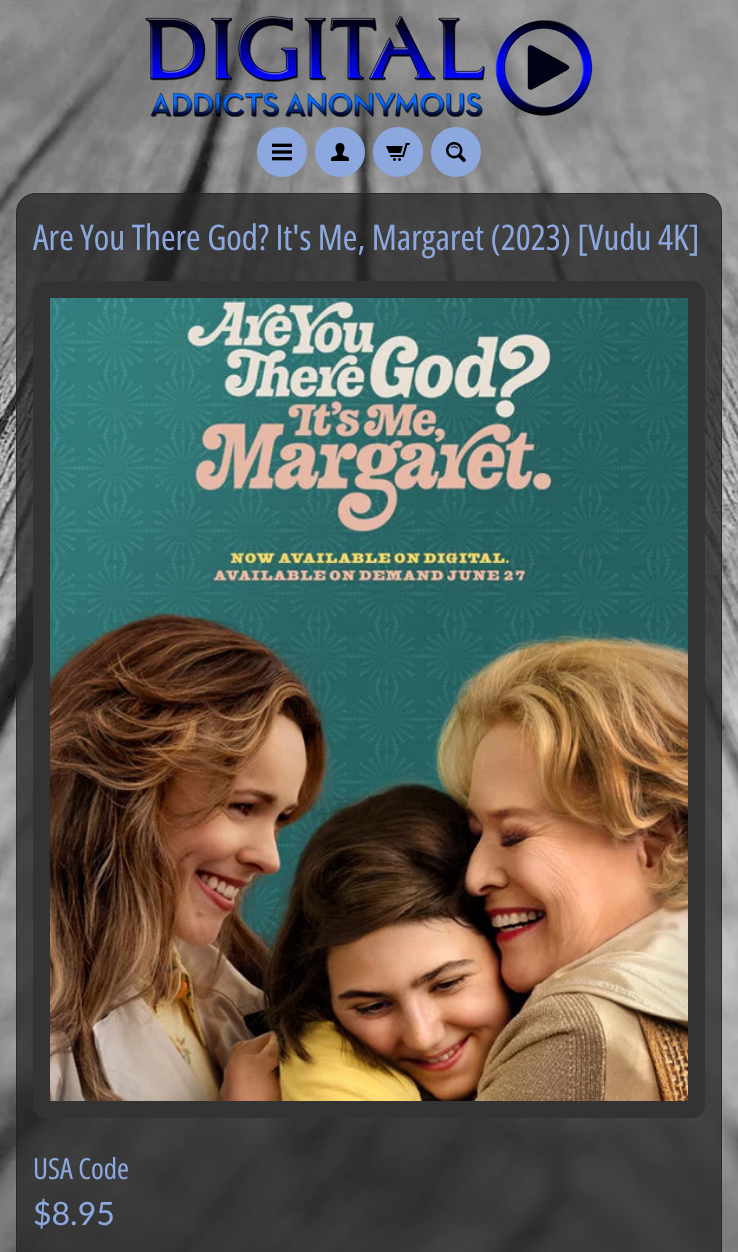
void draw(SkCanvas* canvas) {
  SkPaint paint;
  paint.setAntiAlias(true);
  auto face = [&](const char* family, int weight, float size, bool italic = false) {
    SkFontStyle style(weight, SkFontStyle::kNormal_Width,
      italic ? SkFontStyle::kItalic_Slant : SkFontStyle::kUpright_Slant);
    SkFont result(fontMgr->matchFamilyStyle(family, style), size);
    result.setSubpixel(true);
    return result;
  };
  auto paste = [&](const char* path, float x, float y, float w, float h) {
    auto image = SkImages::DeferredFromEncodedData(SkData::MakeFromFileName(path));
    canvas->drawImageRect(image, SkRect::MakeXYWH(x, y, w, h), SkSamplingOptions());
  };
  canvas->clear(0xffffffff);
  paste("img/1.png", 0, 0, 738, 1252);
  paste("img/2.png", 145, 16, 448, 101);
  paint.setColor(0xff8ca8de);
  canvas->drawCircle(282, 152, 23.5f, paint);
  paint.setStroke(true);
  paint.setStrokeWidth(3);
  canvas->drawCircle(282, 152, 23.5f, paint);
  paste("img/3.png", 272, 143, 20, 18);
  paint.setStroke(false);
  canvas->drawCircle(340, 152, 23.5f, paint);
  paint.setStroke(true);
  canvas->drawCircle(340, 152, 23.5f, paint);
  paste("img/4.png", 331, 143, 18, 18);
  paint.setStroke(false);
  canvas->drawCircle(398, 152, 23.5f, paint);
  paint.setStroke(true);
  canvas->drawCircle(398, 152, 23.5f, paint);
  paste("img/5.png", 386, 143, 24, 18);
  paint.setStroke(false);
  canvas->drawCircle(456, 152, 23.5f, paint);
  paint.setStroke(true);
  canvas->drawCircle(456, 152, 23.5f, paint);
  paste("img/6.png", 446, 142, 20, 20);
  paint.setStroke(false);
  paint.setColor(0xbf222222);
  canvas->drawRoundRect(SkRect::MakeXYWH(16, 193, 706, 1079), 20, 20, paint);
  paint.setStroke(true);
  paint.setStrokeWidth(1);
  paint.setColor(0xb3222222);
  canvas->drawRoundRect(SkRect::MakeXYWH(16.5f, 193.5f, 705, 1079), 19.5f, 19.5f, paint);
  paint.setStroke(false);
  paint.setColor(0xff333333);
  canvas->drawRoundRect(SkRect::MakeXYWH(33.5f, 281.5f, 671, 836), 11.5f, 11.5f, paint);
  paint.setStroke(true);
  canvas->drawRoundRect(SkRect::MakeXYWH(33.5f, 281.5f, 671, 836), 11.5f, 11.5f, paint);
  paste("img/7.png", 50, 298, 638, 803);
  auto f0 = face("Open Sans Condensed", 400, 35.25f);
  paint.setStroke(false);
  paint.setColor(0xff8ca8de);
  canvas->drawString("Are You There God? It's Me, Margaret (2023) [Vudu 4K]", 33, 250, f0, paint);
  auto f1 = face("Open Sans Condensed", 400, 29);
  canvas->drawString("USA Code", 33, 1179, f1, paint);
  auto f2 = face("Lato", 400, 32);
  canvas->drawString("$8.95", 33, 1225, f2, paint);
}
